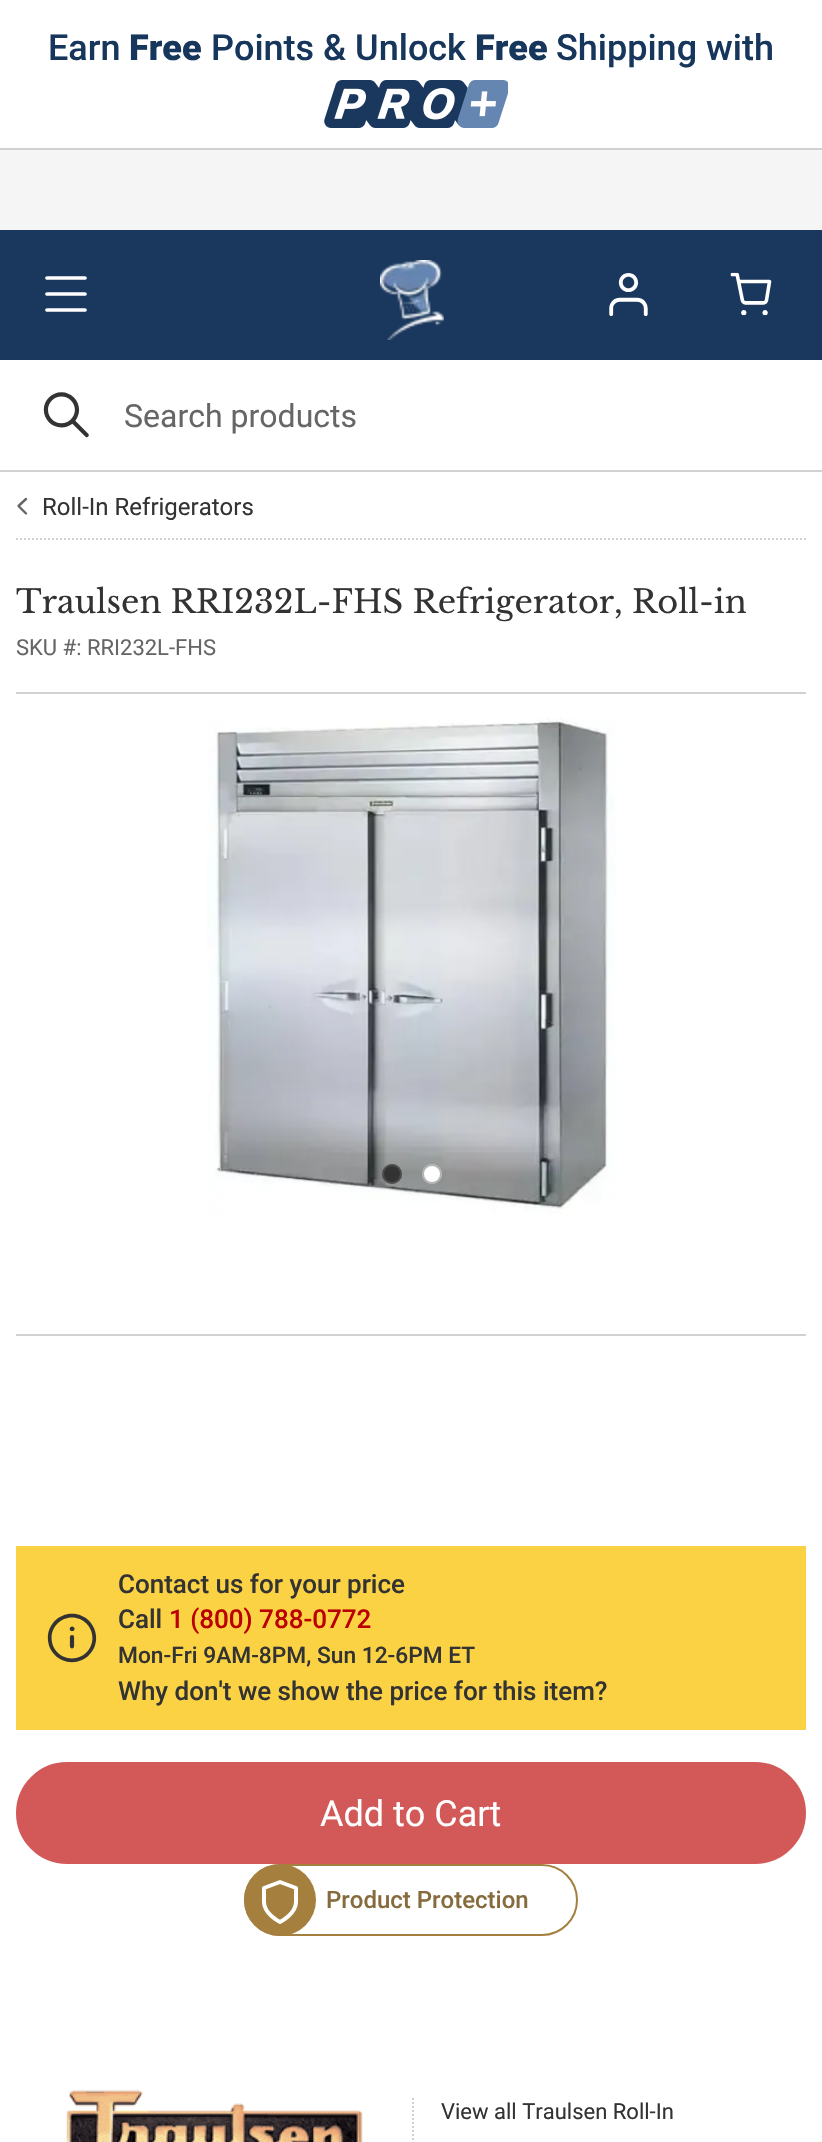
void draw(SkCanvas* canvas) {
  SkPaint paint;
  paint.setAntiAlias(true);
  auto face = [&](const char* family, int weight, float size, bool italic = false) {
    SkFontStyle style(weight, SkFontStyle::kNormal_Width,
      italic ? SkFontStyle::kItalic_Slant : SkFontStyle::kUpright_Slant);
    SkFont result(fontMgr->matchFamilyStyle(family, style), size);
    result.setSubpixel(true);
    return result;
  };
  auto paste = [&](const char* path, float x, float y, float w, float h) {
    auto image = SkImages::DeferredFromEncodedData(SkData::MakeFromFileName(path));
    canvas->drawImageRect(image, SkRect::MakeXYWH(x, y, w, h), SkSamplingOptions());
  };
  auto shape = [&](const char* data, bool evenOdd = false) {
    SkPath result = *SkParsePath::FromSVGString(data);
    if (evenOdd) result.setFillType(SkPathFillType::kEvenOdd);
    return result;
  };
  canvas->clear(0xffffffff);
  paint.setColor(0xffd1d1d1);
  canvas->drawRect(SkRect::MakeXYWH(0, 148, 822, 2), paint);
  paste("img/1.png", 324, 80, 184, 48);
  paint.setColor(0xfff5f5f5);
  canvas->drawRect(SkRect::MakeXYWH(0, 150, 822, 80), paint);
  paint.setColor(0xff1a375d);
  canvas->drawRect(SkRect::MakeXYWH(0, 230, 822, 130), paint);
  paste("img/2.png", 45, 276, 42, 36);
  paste("img/3.png", 380, 260, 64, 80);
  paste("img/4.png", 609, 273, 39, 43);
  paste("img/5.png", 730, 272, 42, 44);
  paint.setColor(0xffd1d1d1);
  canvas->drawRect(SkRect::MakeXYWH(0, 470, 822, 2), paint);
  paste("img/6.png", 43, 392, 46, 46);
  paint.setStroke(true);
  paint.setStrokeWidth(2);
  paint.setPathEffect(SkDashPathEffect::Make({{2, 2}}, 0));
  canvas->drawPath(shape("M16 539H806"), paint);
  paint.setPathEffect(nullptr);
  paint.setStrokeWidth(2.4f);
  paint.setStrokeCap(SkPaint::kRound_Cap);
  paint.setStrokeJoin(SkPaint::kRound_Join);
  paint.setColor(0xff666666);
  canvas->drawPath(shape("M26 513.5L18.5 506L26 499"), paint);
  paint.setStroke(false);
  paint.setColor(0xffd1d1d1);
  canvas->drawRect(SkRect::MakeXYWH(16, 692, 790, 2), paint);
  canvas->drawRect(SkRect::MakeXYWH(16, 1334, 790, 2), paint);
  paste("img/7.png", 207, 718, 409, 496);
  paint.setColor(0xff333333);
  canvas->drawCircle(392, 1174, 10, paint);
  paint.setStroke(true);
  paint.setStrokeWidth(2);
  paint.setStrokeCap(SkPaint::kButt_Cap);
  paint.setStrokeJoin(SkPaint::kMiter_Join);
  paint.setColor(0x80666666);
  canvas->drawCircle(392, 1174, 9, paint);
  paint.setStroke(false);
  paint.setColor(0xffffffff);
  canvas->drawCircle(432, 1174, 10, paint);
  paint.setStroke(true);
  paint.setColor(0x80666666);
  canvas->drawCircle(432, 1174, 9, paint);
  paint.setStroke(false);
  paint.setColor(0xfffbd243);
  canvas->drawRect(SkRect::MakeXYWH(16, 1546, 790, 184), paint);
  paste("img/8.png", 47, 1613, 50, 50);
  paint.setColor(0xffd35959);
  canvas->drawRoundRect(SkRect::MakeXYWH(17, 1763, 788, 100), 50, 50, paint);
  paint.setStroke(true);
  canvas->drawRoundRect(SkRect::MakeXYWH(17, 1763, 788, 100), 50, 50, paint);
  paint.setColor(0xffa47f3e);
  canvas->drawRoundRect(SkRect::MakeXYWH(245, 1865, 332, 70), 35, 35, paint);
  paint.setStroke(false);
  canvas->drawCircle(280, 1900, 36, paint);
  paint.setStroke(true);
  paint.setStrokeWidth(4);
  paint.setStrokeCap(SkPaint::kRound_Cap);
  paint.setStrokeJoin(SkPaint::kRound_Join);
  paint.setColor(0xffffffff);
  canvas->drawPath(shape("M280 1922C280 1922 296 1914 296 1902V1888L280 1882L264 1888V1902C264 1914 280 1922 280 1922Z"), paint);
  paste("img/9.png", 66, 2089, 297, 53);
  paint.setStrokeWidth(2);
  paint.setStrokeCap(SkPaint::kButt_Cap);
  paint.setStrokeJoin(SkPaint::kMiter_Join);
  paint.setColor(0xffd1d1d1);
  paint.setPathEffect(SkDashPathEffect::Make({{2, 2}}, 0));
  canvas->drawPath(shape("M413 2098V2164"), paint);
  paint.setPathEffect(nullptr);
  auto f0 = face("Roboto", 500, 36);
  paint.setStroke(false);
  paint.setColor(0xff17365b);
  canvas->drawString("Earn", 48, 60, f0, paint);
  auto f1 = face("Roboto", 900, 36);
  canvas->drawString("Free", 129, 60, f1, paint);
  canvas->drawString("Points & Unlock", 211, 60, f0, paint);
  canvas->drawString("Free", 475, 60, f1, paint);
  canvas->drawString("Shipping with", 556, 60, f0, paint);
  auto f2 = face("Roboto", 400, 32);
  paint.setColor(0xff666666);
  canvas->drawString("Search products", 124, 427, f2, paint);
  auto f3 = face("Roboto", 400, 24);
  paint.setColor(0xff333333);
  canvas->drawString("Roll-In Refrigerators", 42, 515, f3, paint);
  auto f4 = face("Libre Baskerville", 400, 32);
  canvas->drawString("Traulsen RRI232L-FHS Refrigerator, Roll-in", 16, 613, f4, paint);
  auto f5 = face("Roboto", 400, 22);
  paint.setColor(0xff666666);
  canvas->drawString("SKU #: RRI232L-FHS", 16, 655, f5, paint);
  auto f6 = face("Roboto", 500, 26);
  paint.setColor(0xff333333);
  canvas->drawString("Contact us for your price", 118, 1593, f6, paint);
  canvas->drawString("Call", 118, 1628, f6, paint);
  paint.setColor(0xffbb0000);
  canvas->drawString("1 (800) 788-0772", 169, 1628, f6, paint);
  auto f7 = face("Roboto", 500, 22.75f);
  paint.setColor(0xff333333);
  canvas->drawString("Mon-Fri 9AM-8PM, Sun 12-6PM ET", 118, 1663, f7, paint);
  canvas->drawString("Why don't we show the price for this item?", 118, 1700, f6, paint);
  auto f8 = face("Roboto", 400, 36);
  paint.setColor(0xffffffff);
  canvas->drawString("Add to Cart", 320, 1826, f8, paint);
  auto f9 = face("Roboto", 500, 24);
  paint.setColor(0xff866b3c);
  canvas->drawString("Product Protection", 326, 1908, f9, paint);
  paint.setColor(0xff333333);
  canvas->drawString("View all Traulsen Roll-In", 441, 2119, f5, paint);
}
